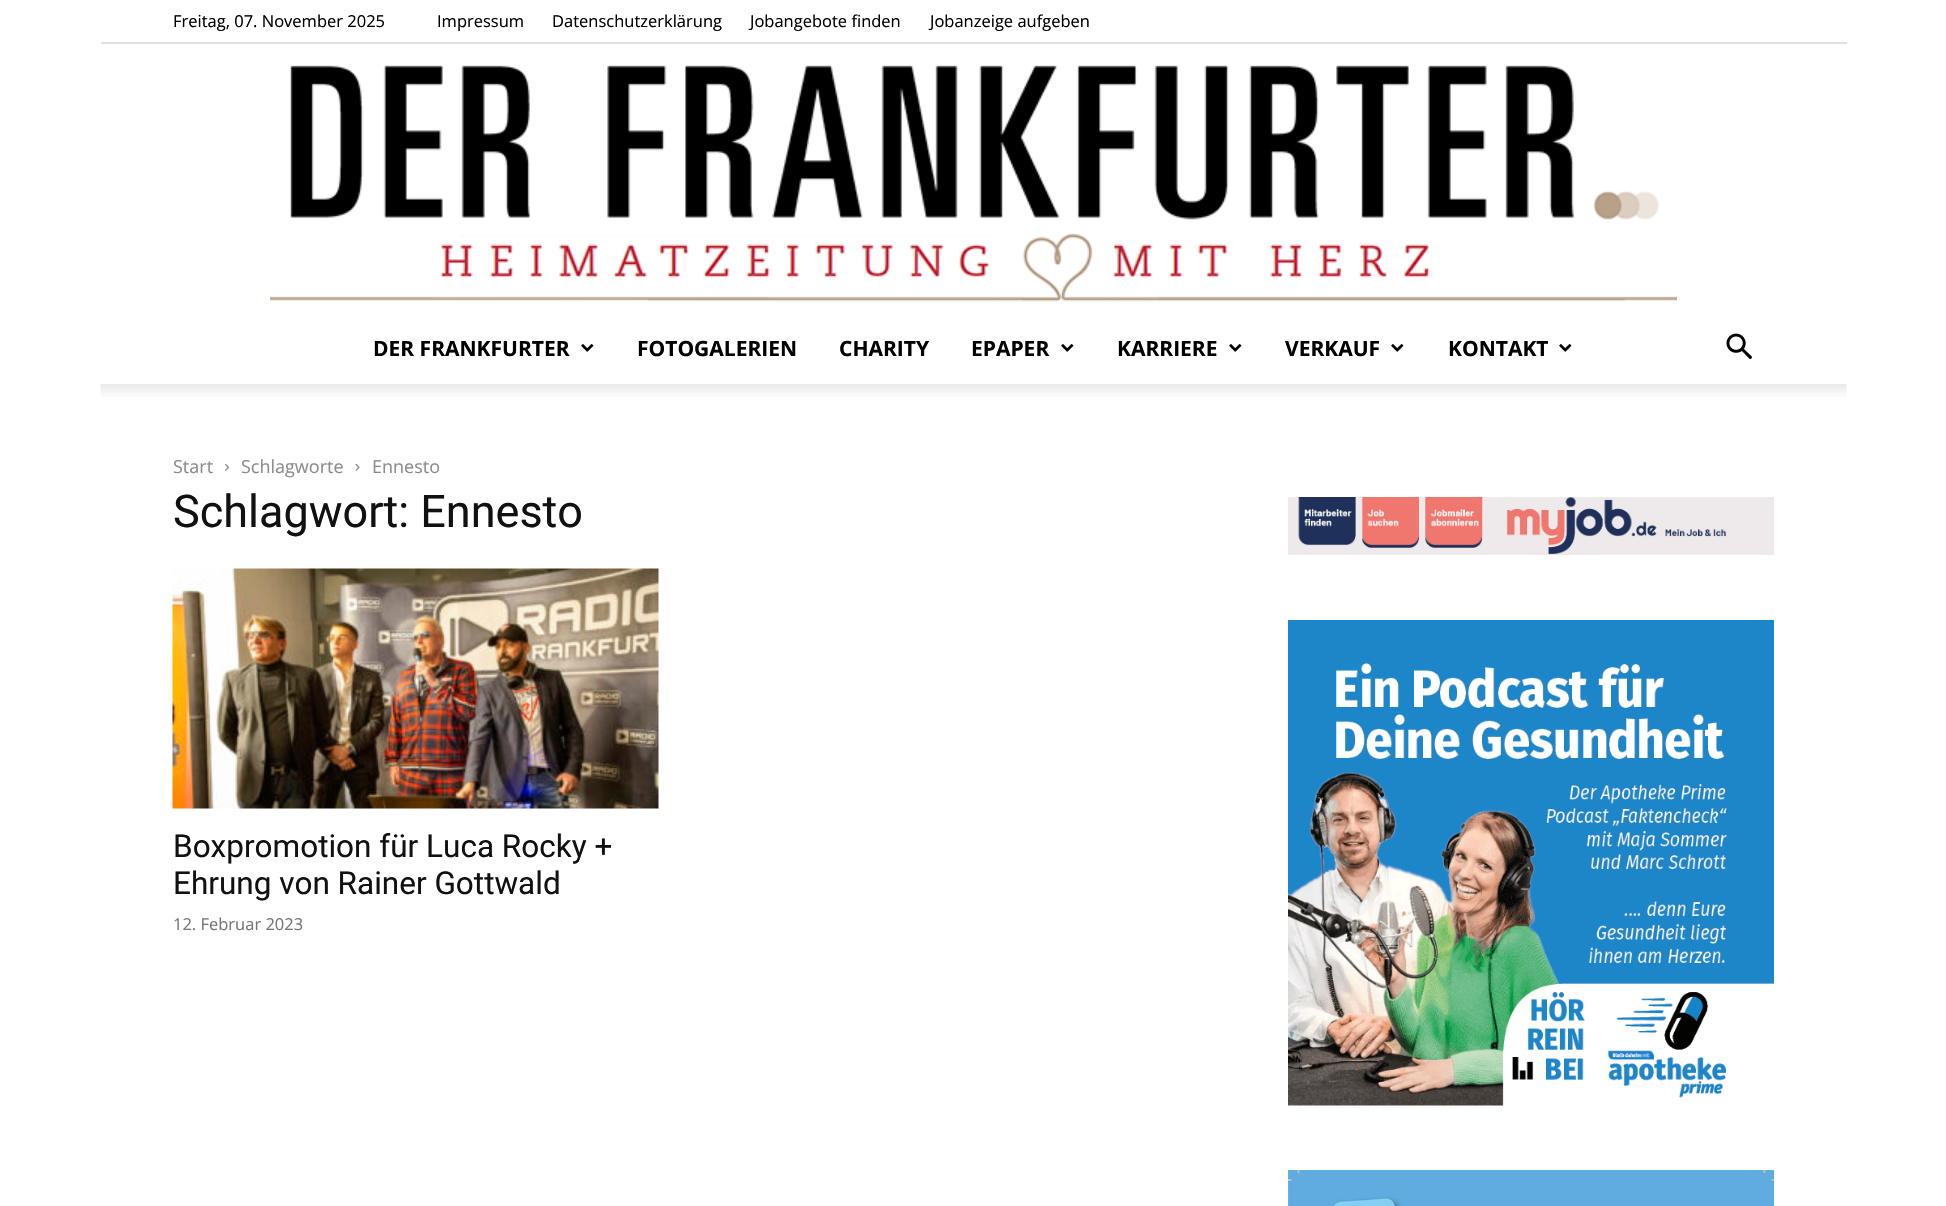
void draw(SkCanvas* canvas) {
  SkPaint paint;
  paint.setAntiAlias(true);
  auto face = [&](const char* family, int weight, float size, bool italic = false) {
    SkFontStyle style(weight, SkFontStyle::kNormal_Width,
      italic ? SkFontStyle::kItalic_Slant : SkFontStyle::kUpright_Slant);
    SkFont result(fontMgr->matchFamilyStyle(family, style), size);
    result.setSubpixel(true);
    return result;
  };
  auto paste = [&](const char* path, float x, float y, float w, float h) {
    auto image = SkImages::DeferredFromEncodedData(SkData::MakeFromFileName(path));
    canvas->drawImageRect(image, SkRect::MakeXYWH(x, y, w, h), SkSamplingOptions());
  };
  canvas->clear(0xffffffff);
  paint.setColor(0xffe0e0e0);
  canvas->drawRect(SkRect::MakeXYWH(101, 42, 1746, 2), paint);
  paste("img/1.png", 270, 65, 1407, 237);
  paste("img/2.png", 581, 344, 13, 8);
  paste("img/2.png", 1061, 344, 13, 8);
  paste("img/2.png", 1229, 344, 13, 8);
  paste("img/2.png", 1391, 344, 13, 8);
  paste("img/2.png", 1559, 344, 13, 8);
  paste("img/3.png", 1726, 333, 26, 26);
  paste("img/4.png", 100, 384, 1747, 13);
  paste("img/5.png", 225, 463, 4, 8);
  paste("img/6.png", 355, 463, 5, 8);
  paste("img/7.png", 172, 568, 487, 241);
  paste("img/8.png", 1288, 497, 486, 58);
  paste("img/9.png", 1288, 620, 486, 486);
  paste("img/10.png", 1288, 1170, 486, 36);
  auto f0 = face("Open Sans", 400, 16.5f);
  paint.setColor(0xff000000);
  {
    const struct { const char* s; float x, y; } items[] = {
      {"Freitag, 07. November 2025", 173, 27},
      {"Impressum", 437, 27},
      {"Datenschutzerklärung", 552, 27},
      {"Jobangebote finden", 750, 27},
      {"Jobanzeige aufgeben", 930, 27},
    };
    for (auto [s, x, y] : items) {
      canvas->drawString(s, x, y, f0, paint);
    }
  }
  auto f1 = face("Open Sans", 700, 21);
  {
    const struct { const char* s; float x, y; } items[] = {
      {"DER FRANKFURTER", 373, 356},
      {"FOTOGALERIEN", 637, 356},
      {"CHARITY", 839, 356},
      {"EPAPER", 971, 356},
      {"KARRIERE", 1117, 356},
      {"VERKAUF", 1285, 356},
      {"KONTAKT", 1448, 356},
    };
    for (auto [s, x, y] : items) {
      canvas->drawString(s, x, y, f1, paint);
    }
  }
  auto f2 = face("Open Sans", 400, 18);
  paint.setColor(0xff8a8b8b);
  {
    const struct { const char* s; float x, y; } items[] = {
      {"Start", 173, 473},
      {"Schlagworte", 241, 473},
      {"Ennesto", 372, 473},
    };
    for (auto [s, x, y] : items) {
      canvas->drawString(s, x, y, f2, paint);
    }
  }
  auto f3 = face("Roboto", 400, 45);
  paint.setColor(0xff111111);
  canvas->drawString("Schlagwort: Ennesto", 173, 527, f3, paint);
  auto f4 = face("Roboto", 400, 31.5f);
  canvas->drawString("Boxpromotion für Luca Rocky +", 173, 857, f4, paint);
  canvas->drawString("Ehrung von Rainer Gottwald", 173, 894, f4, paint);
  paint.setColor(0xff767676);
  canvas->drawString("12. Februar 2023", 173, 930, f0, paint);
}
